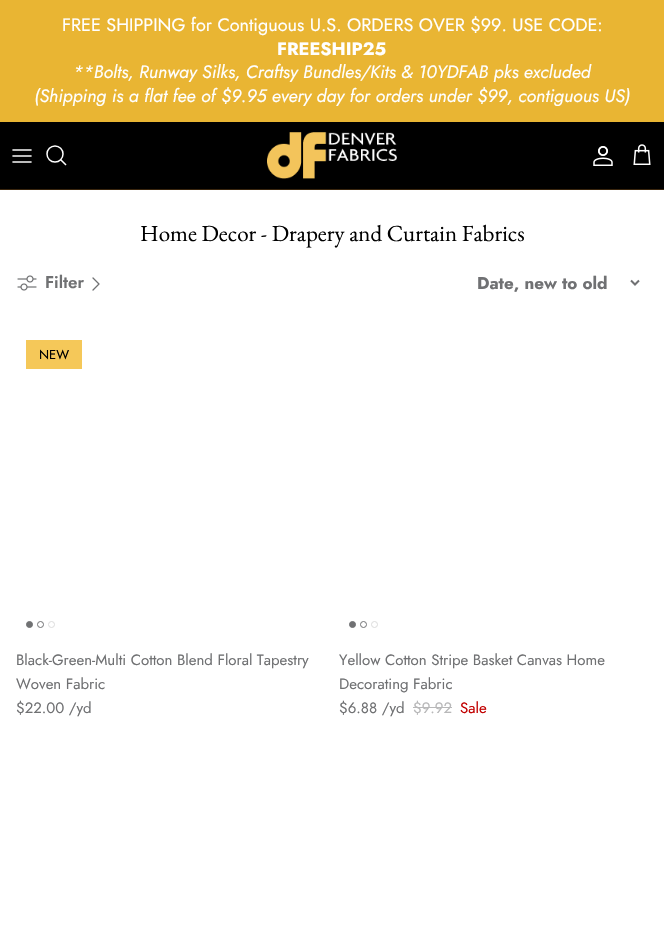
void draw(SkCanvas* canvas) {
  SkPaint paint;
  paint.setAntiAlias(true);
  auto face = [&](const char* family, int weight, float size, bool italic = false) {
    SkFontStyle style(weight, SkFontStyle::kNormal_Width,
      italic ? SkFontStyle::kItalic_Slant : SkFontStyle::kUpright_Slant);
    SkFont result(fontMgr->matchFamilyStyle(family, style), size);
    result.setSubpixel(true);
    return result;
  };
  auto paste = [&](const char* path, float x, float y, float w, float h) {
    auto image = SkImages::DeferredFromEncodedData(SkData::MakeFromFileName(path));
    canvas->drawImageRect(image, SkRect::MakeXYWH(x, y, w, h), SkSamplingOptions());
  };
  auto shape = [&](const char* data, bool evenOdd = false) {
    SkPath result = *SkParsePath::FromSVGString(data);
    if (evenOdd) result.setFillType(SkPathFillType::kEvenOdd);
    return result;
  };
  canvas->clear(0xffffffff);
  {
    const struct { float x, y, w, h; SkColor color; } items[] = {
      {0, 0, 664, 122, 0xffe9b533},
      {0, 122, 664, 67, 0xff000000},
      {0, 189, 664, 1, 0xff39250d},
    };
    for (auto [x, y, w, h, color] : items) {
      paint.setColor(color);
      canvas->drawRect(SkRect::MakeXYWH(x, y, w, h), paint);
    }
  }
  paste("img/1.png", 12, 149, 20, 14);
  paint.setStroke(true);
  paint.setStrokeWidth(1.5f);
  paint.setColor(0xffffffff);
  canvas->drawCircle(55, 154, 8, paint);
  paint.setStrokeCap(SkPaint::kSquare_Cap);
  canvas->drawPath(shape("M61 160L65.5 164.5"), paint);
  paste("img/2.png", 267, 132, 130, 47);
  paste("img/3.png", 593, 146, 20, 20);
  paste("img/4.png", 633, 144, 18, 21);
  paste("img/5.png", 17, 275, 20, 16);
  paint.setStrokeWidth(1.3f);
  paint.setStrokeCap(SkPaint::kRound_Cap);
  paint.setStrokeJoin(SkPaint::kRound_Join);
  paint.setColor(0xff707173);
  canvas->drawPath(shape("M93 290L99 284L93 278"), paint);
  paint.setStrokeWidth(2);
  paint.setStrokeCap(SkPaint::kButt_Cap);
  paint.setStrokeJoin(SkPaint::kMiter_Join);
  canvas->drawPath(shape("M631 280.5L635 284.5L639 280.5"), paint);
  paint.setStroke(false);
  paint.setColor(0xfff5c859);
  canvas->drawRect(SkRect::MakeXYWH(26, 340, 56, 29), paint);
  paint.setColor(0xff707173);
  canvas->drawCircle(29.5f, 624.5f, 3, paint);
  paint.setStroke(true);
  paint.setStrokeWidth(1);
  canvas->drawCircle(29.5f, 624.5f, 3, paint);
  canvas->drawCircle(40.5f, 624.5f, 3, paint);
  paint.setColor(0xffdbdcdc);
  canvas->drawCircle(51.5f, 624.5f, 3, paint);
  paint.setStroke(false);
  paint.setColor(0xff707173);
  canvas->drawCircle(352.5f, 624.5f, 3, paint);
  paint.setStroke(true);
  canvas->drawCircle(352.5f, 624.5f, 3, paint);
  canvas->drawCircle(363.5f, 624.5f, 3, paint);
  paint.setColor(0xffdbdcdc);
  canvas->drawCircle(374.5f, 624.5f, 3, paint);
  paint.setStroke(false);
  paint.setColor(0xffb8b8b9);
  canvas->drawRect(SkRect::MakeXYWH(413, 707, 39, 1), paint);
  auto f0 = face("Jost", 400, 18);
  paint.setColor(0xffffffff);
  canvas->drawString("FREE SHIPPING for Contiguous U.S. ORDERS OVER $99. USE CODE:", 62, 31, f0, paint);
  auto f1 = face("Jost", 700, 18);
  canvas->drawString("FREESHIP25", 277, 55, f1, paint);
  auto f2 = face("Jost", 400, 18, true);
  canvas->drawString("**Bolts, Runway Silks, Craftsy Bundles/Kits & 10YDFAB pks excluded", 73, 78, f2, paint);
  canvas->drawString("(Shipping is a flat fee of $9.95 every day for orders under $99, contiguous US)", 34, 102, f2, paint);
  auto f3 = face("EB Garamond", 400, 23);
  paint.setColor(0xff000000);
  canvas->drawString("Home Decor - Drapery and Curtain Fabrics", 140, 241, f3, paint);
  auto f4 = face("Jost", 600, 17);
  paint.setColor(0xff707173);
  canvas->drawString("Filter", 45, 288, f4, paint);
  auto f5 = face("Jost", 700, 17);
  canvas->drawString("Date, new to old", 477, 289, f5, paint);
  auto f6 = face("Jost", 400, 13);
  paint.setColor(0xff000000);
  canvas->drawString("NEW", 39, 359, f6, paint);
  auto f7 = face("Jost", 400, 15);
  paint.setColor(0xff707173);
  {
    const struct { const char* s; float x, y; } items[] = {
      {"Black-Green-Multi Cotton Blend Floral Tapestry", 16, 665},
      {"Woven Fabric", 16, 689},
      {"$22.00 /yd", 16, 713},
      {"Yellow Cotton Stripe Basket Canvas Home", 339, 665},
      {"Decorating Fabric", 339, 689},
      {"$6.88 /yd", 339, 713},
    };
    for (auto [s, x, y] : items) {
      canvas->drawString(s, x, y, f7, paint);
    }
  }
  paint.setColor(0xffb8b8b9);
  canvas->drawString("$9.92", 413, 713, f7, paint);
  paint.setColor(0xffc20000);
  canvas->drawString("Sale", 460, 713, f7, paint);
}
